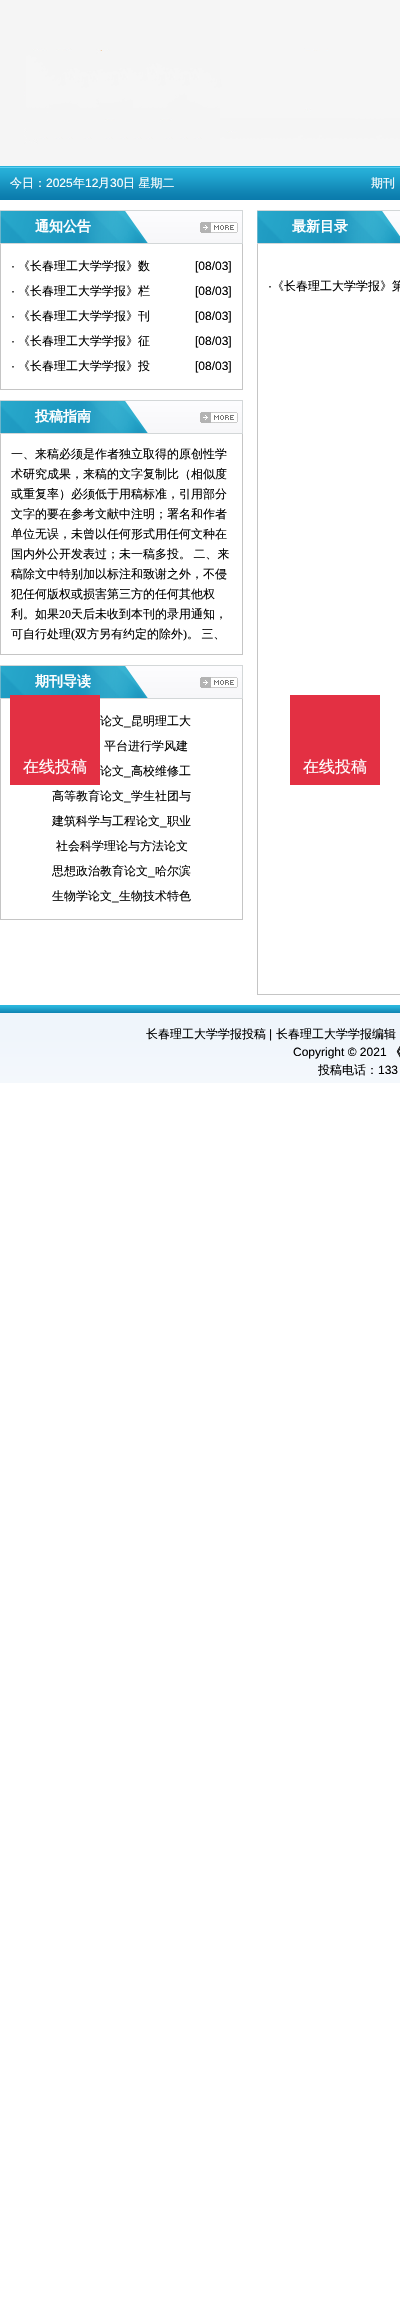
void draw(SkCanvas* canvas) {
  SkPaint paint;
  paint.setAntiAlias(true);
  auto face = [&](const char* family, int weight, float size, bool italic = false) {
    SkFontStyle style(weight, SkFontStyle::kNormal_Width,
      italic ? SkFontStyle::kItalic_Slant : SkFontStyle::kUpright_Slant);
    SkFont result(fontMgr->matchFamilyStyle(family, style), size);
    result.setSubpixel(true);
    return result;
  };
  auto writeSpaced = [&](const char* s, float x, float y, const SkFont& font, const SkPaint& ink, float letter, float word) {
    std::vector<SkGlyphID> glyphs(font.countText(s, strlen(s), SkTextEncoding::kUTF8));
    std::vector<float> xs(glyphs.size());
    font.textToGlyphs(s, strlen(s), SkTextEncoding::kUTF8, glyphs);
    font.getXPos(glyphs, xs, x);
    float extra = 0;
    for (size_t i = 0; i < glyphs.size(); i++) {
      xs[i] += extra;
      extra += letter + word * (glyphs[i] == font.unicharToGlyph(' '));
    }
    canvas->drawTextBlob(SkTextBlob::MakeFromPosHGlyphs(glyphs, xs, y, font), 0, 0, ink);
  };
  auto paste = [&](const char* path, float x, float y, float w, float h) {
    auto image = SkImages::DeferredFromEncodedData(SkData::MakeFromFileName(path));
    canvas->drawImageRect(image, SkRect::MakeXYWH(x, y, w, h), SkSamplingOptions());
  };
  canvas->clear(0xffffffff);
  paste("img/1.png", 0, 0, 400, 166);
  paste("img/2.png", 0, 166, 400, 34);
  paste("img/3.png", 0, 210, 243, 34);
  {
    const struct { float x, y, w, h; SkColor color; } items[] = {
      {242, 244, 1, 146, 0xffc5c5c5},
      {0, 389, 243, 1, 0xffc5c5c5},
      {0, 244, 1, 146, 0xffc5c5c5},
    };
    for (auto [x, y, w, h, color] : items) {
      paint.setColor(color);
      canvas->drawRect(SkRect::MakeXYWH(x, y, w, h), paint);
    }
  }
  paste("img/3.png", 0, 400, 243, 34);
  {
    const struct { float x, y, w, h; SkColor color; } items[] = {
      {242, 434, 1, 221, 0xffc5c5c5},
      {0, 654, 243, 1, 0xffc5c5c5},
      {0, 434, 1, 221, 0xffc5c5c5},
    };
    for (auto [x, y, w, h, color] : items) {
      paint.setColor(color);
      canvas->drawRect(SkRect::MakeXYWH(x, y, w, h), paint);
    }
  }
  paste("img/3.png", 0, 665, 243, 34);
  {
    const struct { float x, y, w, h; SkColor color; } items[] = {
      {242, 699, 1, 221, 0xffc5c5c5},
      {0, 919, 243, 1, 0xffc5c5c5},
      {0, 699, 1, 221, 0xffc5c5c5},
    };
    for (auto [x, y, w, h, color] : items) {
      paint.setColor(color);
      canvas->drawRect(SkRect::MakeXYWH(x, y, w, h), paint);
    }
  }
  paste("img/4.png", 257, 210, 143, 34);
  {
    const struct { float x, y, w, h; SkColor color; } items[] = {
      {257, 994, 143, 1, 0xffc5c5c5},
      {257, 244, 1, 751, 0xffc5c5c5},
      {10, 695, 90, 90, 0xffe33043},
      {290, 695, 90, 90, 0xffe33043},
    };
    for (auto [x, y, w, h, color] : items) {
      paint.setColor(color);
      canvas->drawRect(SkRect::MakeXYWH(x, y, w, h), paint);
    }
  }
  paste("img/5.png", 0, 1005, 400, 78);
  auto f0 = face("WenQuanYi Zen Hei", 500, 12);
  paint.setColor(0xffffffff);
  canvas->drawString("今日：", 10, 187, f0, paint);
  auto f1 = face("Liberation Sans", 400, 12);
  canvas->drawString("2025", 46, 187, f1, paint);
  canvas->drawString("年", 73, 187, f0, paint);
  canvas->drawString("12", 85, 187, f1, paint);
  canvas->drawString("月", 98, 187, f0, paint);
  canvas->drawString("30", 110, 187, f1, paint);
  canvas->drawString("日 星期二", 123, 187, f0, paint);
  canvas->drawString("期刊", 371, 187, f0, paint);
  auto f2 = face("WenQuanYi Zen Hei", 700, 14);
  canvas->drawString("通知公告", 35, 231, f2, paint);
  paint.setColor(0xff000000);
  canvas->drawString("·", 11, 270, f1, paint);
  canvas->drawString("《长春理工大学学报》数", 18, 270, f0, paint);
  canvas->drawString("[08/03]", 195, 270, f1, paint);
  canvas->drawString("·", 11, 295, f1, paint);
  canvas->drawString("《长春理工大学学报》栏", 18, 295, f0, paint);
  canvas->drawString("[08/03]", 195, 295, f1, paint);
  canvas->drawString("·", 11, 320, f1, paint);
  canvas->drawString("《长春理工大学学报》刊", 18, 320, f0, paint);
  canvas->drawString("[08/03]", 195, 320, f1, paint);
  canvas->drawString("·", 11, 345, f1, paint);
  canvas->drawString("《长春理工大学学报》征", 18, 345, f0, paint);
  canvas->drawString("[08/03]", 195, 345, f1, paint);
  canvas->drawString("·", 11, 370, f1, paint);
  canvas->drawString("《长春理工大学学报》投", 18, 370, f0, paint);
  canvas->drawString("[08/03]", 195, 370, f1, paint);
  paint.setColor(0xffffffff);
  canvas->drawString("投稿指南", 35, 421, f2, paint);
  paint.setColor(0xff000000);
  {
    const struct { const char* s; float x, y; } items[] = {
      {"一、来稿必须是作者独立取得的原创性学", 11, 458},
      {"术研究成果，来稿的文字复制比（相似度", 11, 478},
      {"或重复率）必须低于用稿标准，引用部分", 11, 498},
      {"文字的要在参考文献中注明；署名和作者", 11, 518},
      {"单位无误，未曾以任何形式用任何文种在", 11, 538},
    };
    for (auto [s, x, y] : items) {
      canvas->drawString(s, x, y, f0, paint);
    }
  }
  writeSpaced("国内外公开发表过；未一稿多投。 二、来", 11, 558, f0, paint, 0, -1);
  {
    const struct { const char* s; float x, y; } items[] = {
      {"稿除文中特别加以标注和致谢之外，不侵", 11, 578},
      {"犯任何版权或损害第三方的任何其他权", 11, 598},
      {"利。如果", 11, 618},
    };
    for (auto [s, x, y] : items) {
      canvas->drawString(s, x, y, f0, paint);
    }
  }
  auto f3 = face("Liberation Serif", 400, 12);
  canvas->drawString("20", 59, 618, f3, paint);
  canvas->drawString("天后未收到本刊的录用通知，", 71, 618, f0, paint);
  canvas->drawString("可自行处理", 11, 638, f0, paint);
  canvas->drawString("(", 71, 638, f3, paint);
  canvas->drawString("双方另有约定的除外", 75, 638, f0, paint);
  canvas->drawString(")", 183, 638, f3, paint);
  writeSpaced("。 三、", 187, 638, f0, paint, 0, -1);
  paint.setColor(0xffffffff);
  canvas->drawString("期刊导读", 35, 686, f2, paint);
  paint.setColor(0xff000000);
  canvas->drawString("论文", 100, 725, f0, paint);
  canvas->drawString("_", 124, 725, f1, paint);
  {
    const struct { const char* s; float x, y; } items[] = {
      {"昆明理工大", 131, 725},
      {"平台进行学风建", 104, 750},
      {"论文", 100, 775},
    };
    for (auto [s, x, y] : items) {
      canvas->drawString(s, x, y, f0, paint);
    }
  }
  canvas->drawString("_", 124, 775, f1, paint);
  canvas->drawString("高校维修工", 131, 775, f0, paint);
  canvas->drawString("高等教育论文", 52, 800, f0, paint);
  canvas->drawString("_", 124, 800, f1, paint);
  canvas->drawString("学生社团与", 131, 800, f0, paint);
  canvas->drawString("建筑科学与工程论文", 52, 825, f0, paint);
  canvas->drawString("_", 160, 825, f1, paint);
  {
    const struct { const char* s; float x, y; } items[] = {
      {"职业", 167, 825},
      {"社会科学理论与方法论文", 56, 850},
      {"思想政治教育论文", 52, 875},
    };
    for (auto [s, x, y] : items) {
      canvas->drawString(s, x, y, f0, paint);
    }
  }
  canvas->drawString("_", 148, 875, f1, paint);
  canvas->drawString("哈尔滨", 155, 875, f0, paint);
  canvas->drawString("生物学论文", 52, 900, f0, paint);
  canvas->drawString("_", 112, 900, f1, paint);
  canvas->drawString("生物技术特色", 119, 900, f0, paint);
  paint.setColor(0xffffffff);
  canvas->drawString("最新目录", 292, 231, f2, paint);
  paint.setColor(0xff000000);
  canvas->drawString("·", 268, 290, f1, paint);
  canvas->drawString("《长春理工大学学报》第", 272, 290, f0, paint);
  auto f4 = face("WenQuanYi Zen Hei", 500, 16);
  paint.setColor(0xffffffff);
  canvas->drawString("在线投稿", 23, 772, f4, paint);
  canvas->drawString("在线投稿", 303, 772, f4, paint);
  paint.setColor(0xff000000);
  canvas->drawString("长春理工大学学报投稿", 146, 1038, f0, paint);
  canvas->drawString("|", 269, 1038, f1, paint);
  canvas->drawString("长春理工大学学报编辑", 276, 1038, f0, paint);
  canvas->drawString("Copyright © 2021", 293, 1056, f1, paint);
  auto f5 = face("WenQuanYi Zen Hei", 700, 12);
  canvas->drawString("《", 390, 1056, f5, paint);
  canvas->drawString("投稿电话：", 318, 1074, f0, paint);
  canvas->drawString("133", 378, 1074, f1, paint);
}
